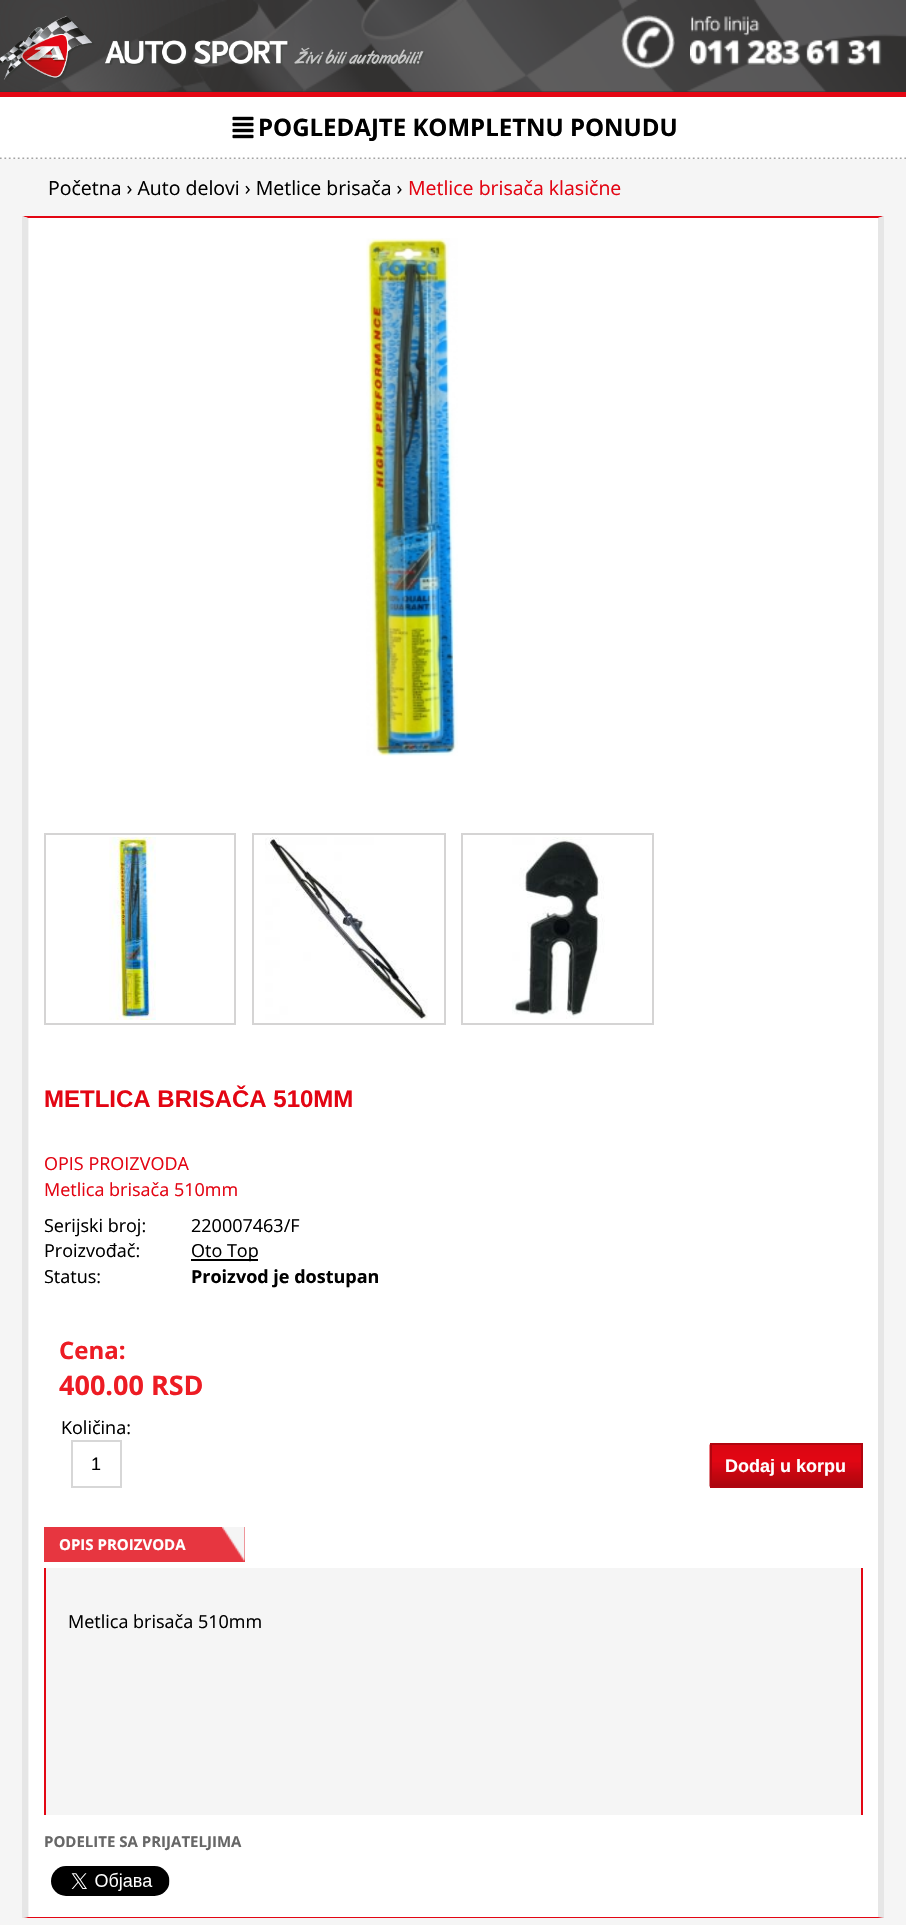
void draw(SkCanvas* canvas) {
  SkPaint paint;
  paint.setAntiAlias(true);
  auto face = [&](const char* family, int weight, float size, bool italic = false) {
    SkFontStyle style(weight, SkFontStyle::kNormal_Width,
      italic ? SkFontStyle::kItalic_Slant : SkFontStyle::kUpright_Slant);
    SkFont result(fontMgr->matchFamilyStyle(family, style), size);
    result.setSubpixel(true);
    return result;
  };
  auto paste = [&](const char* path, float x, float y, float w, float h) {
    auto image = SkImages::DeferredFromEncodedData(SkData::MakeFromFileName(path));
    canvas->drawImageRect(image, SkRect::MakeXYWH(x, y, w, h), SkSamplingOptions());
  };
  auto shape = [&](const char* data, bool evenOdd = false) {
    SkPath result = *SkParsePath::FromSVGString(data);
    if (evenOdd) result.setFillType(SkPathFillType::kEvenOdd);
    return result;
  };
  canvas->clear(0xfff5f5f5);
  paint.setColor(0xff363535);
  canvas->drawRect(SkRect::MakeXYWH(0, 0, 906, 92), paint);
  paste("img/1.png", 38, 0, 868, 92);
  paste("img/2.png", 0, 0, 425, 92);
  paste("img/3.png", 621, 15, 54, 54);
  paste("img/4.png", 690, 16, 192, 50);
  paint.setColor(0xffffffff);
  canvas->drawRect(SkRect::MakeXYWH(0, 97, 906, 62), paint);
  paste("img/5.png", 0, 157, 906, 2);
  paint.setColor(0xffe40613);
  canvas->drawRect(SkRect::MakeXYWH(0, 92, 906, 5), paint);
  paste("img/6.png", 232, 116, 22, 23);
  paint.setColor(0xffffffff);
  canvas->drawRect(SkRect::MakeXYWH(29, 218, 849, 1699), paint);
  paint.setColor(0xffe30613);
  canvas->drawPath(shape("M22 216H884L878 218H28Z"), paint);
  paint.setColor(0xffe6e6e6);
  canvas->drawPath(shape("M884 216V1918L878 1917V218Z"), paint);
  paint.setColor(0xffe30613);
  canvas->drawPath(shape("M884 1918H22L28 1917H878Z"), paint);
  paint.setColor(0xffe6e6e6);
  canvas->drawPath(shape("M22 1918V216L28 218V1917Z"), paint);
  paste("img/7.png", 366, 238, 92, 518);
  paint.setStroke(true);
  paint.setStrokeWidth(2);
  paint.setColor(0xffd5d4d4);
  canvas->drawRect(SkRect::MakeXYWH(45, 834, 190, 190), paint);
  paste("img/8.png", 109, 837, 47, 183);
  canvas->drawRect(SkRect::MakeXYWH(253, 834, 192, 190), paint);
  paste("img/9.png", 265, 837, 163, 183);
  canvas->drawRect(SkRect::MakeXYWH(462, 834, 191, 190), paint);
  paste("img/10.png", 512, 837, 93, 182);
  paint.setStroke(false);
  paint.setColor(0xff000000);
  canvas->drawRect(SkRect::MakeXYWH(191, 1259, 67, 2), paint);
  paint.setStroke(true);
  paint.setColor(0xffd7d7d7);
  canvas->drawRect(SkRect::MakeXYWH(72, 1441, 49, 46), paint);
  paste("img/11.png", 709, 1444, 152, 43);
  paint.setColor(0xffb0050f);
  canvas->drawRect(SkRect::MakeXYWH(711, 1444, 151, 43), paint);
  paint.setStroke(false);
  paint.setColor(0xffe73640);
  canvas->drawRect(SkRect::MakeXYWH(44, 1527, 201, 35), paint);
  paste("img/12.png", 222, 1527, 23, 35);
  {
    const struct { float x, y, w, h; SkColor color; } items[] = {
      {46, 1568, 815, 247, 0xfff5f5f5},
      {861, 1568, 2, 247, 0xffe30714},
      {44, 1568, 2, 247, 0xffe30714},
    };
    for (auto [x, y, w, h, color] : items) {
      paint.setColor(color);
      canvas->drawRect(SkRect::MakeXYWH(x, y, w, h), paint);
    }
  }
  paste("img/13.png", 51, 1866, 119, 30);
  auto f0 = face("Open Sans", 700, 24);
  paint.setColor(0xff000000);
  canvas->drawString("POGLEDAJTE KOMPLETNU PONUDU", 258, 136, f0, paint);
  auto f1 = face("Open Sans", 400, 19.5f);
  canvas->drawString("Početna › Auto delovi › Metlice brisača ›", 48, 195, f1, paint);
  paint.setColor(0xffe30513);
  canvas->drawString("Metlice brisača klasične", 408, 195, f1, paint);
  auto f2 = face("Liberation Sans", 700, 24);
  canvas->drawString("METLICA BRISAČA 510MM", 44, 1107, f2, paint);
  auto f3 = face("Open Sans", 400, 18);
  canvas->drawString("OPIS PROIZVODA", 44, 1170, f3, paint);
  canvas->drawString("Metlica brisača 510mm", 44, 1196, f3, paint);
  paint.setColor(0xff000000);
  {
    const struct { const char* s; float x, y; } items[] = {
      {"Serijski broj:", 44, 1232},
      {"220007463/F", 191, 1232},
      {"Proizvođač:", 44, 1257},
      {"Oto Top", 191, 1257},
      {"Status:", 44, 1283},
    };
    for (auto [s, x, y] : items) {
      canvas->drawString(s, x, y, f3, paint);
    }
  }
  auto f4 = face("Open Sans", 700, 18);
  canvas->drawString("Proizvod je dostupan", 191, 1283, f4, paint);
  paint.setColor(0xffed1c24);
  canvas->drawString("Cena:", 59, 1359, f0, paint);
  auto f5 = face("Open Sans", 700, 27);
  canvas->drawString("400.00 RSD", 59, 1395, f5, paint);
  paint.setColor(0xff000000);
  canvas->drawString("Količina:", 61, 1434, f3, paint);
  auto f6 = face("Liberation Sans", 400, 18);
  canvas->drawString("1", 91, 1470, f6, paint);
  auto f7 = face("Liberation Sans", 700, 18);
  paint.setColor(0xffffffff);
  canvas->drawString("Dodaj u korpu", 725, 1472, f7, paint);
  auto f8 = face("Open Sans", 700, 15);
  canvas->drawString("OPIS PROIZVODA", 59, 1550, f8, paint);
  paint.setColor(0xff000000);
  canvas->drawString("Metlica brisača 510mm", 68, 1628, f3, paint);
  paint.setColor(0xff676767);
  canvas->drawString("PODELITE SA PRIJATELJIMA", 44, 1847, f8, paint);
}
